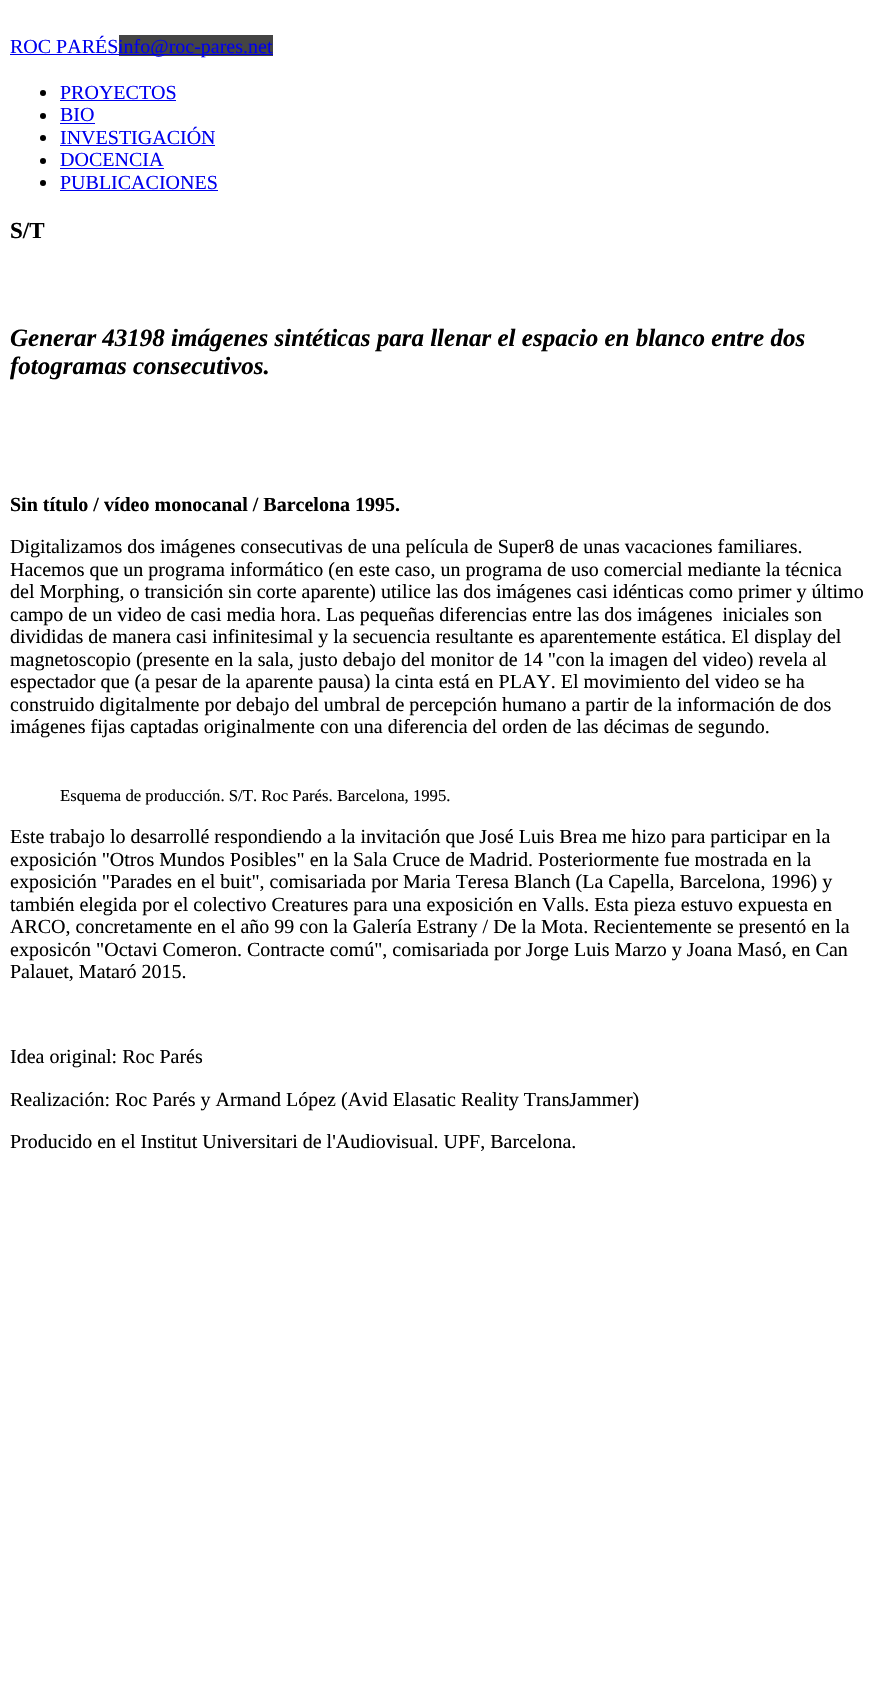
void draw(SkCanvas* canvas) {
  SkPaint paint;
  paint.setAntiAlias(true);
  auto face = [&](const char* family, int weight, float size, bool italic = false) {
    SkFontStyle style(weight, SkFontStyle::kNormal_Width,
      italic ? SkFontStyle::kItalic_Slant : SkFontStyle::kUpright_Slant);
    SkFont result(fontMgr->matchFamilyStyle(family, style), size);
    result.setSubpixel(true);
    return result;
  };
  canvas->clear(0xffffffff);
  {
    const struct { float x, y, w, h; SkColor color; } items[] = {
      {119, 35, 154, 21, 0xff444444},
      {10, 54, 109, 1, 0xff0000ee},
      {119, 54, 154, 1, 0xff0000ee},
    };
    for (auto [x, y, w, h, color] : items) {
      paint.setColor(color);
      canvas->drawRect(SkRect::MakeXYWH(x, y, w, h), paint);
    }
  }
  paint.setColor(0xff000000);
  canvas->drawCircle(43, 93, 3, paint);
  paint.setColor(0xff0000ee);
  canvas->drawRect(SkRect::MakeXYWH(60, 100, 116, 1), paint);
  paint.setColor(0xff000000);
  canvas->drawCircle(43, 116, 3, paint);
  paint.setColor(0xff0000ee);
  canvas->drawRect(SkRect::MakeXYWH(60, 123, 35, 1), paint);
  paint.setColor(0xff000000);
  canvas->drawCircle(43, 138, 3, paint);
  paint.setColor(0xff0000ee);
  canvas->drawRect(SkRect::MakeXYWH(60, 145, 155, 1), paint);
  paint.setColor(0xff000000);
  canvas->drawCircle(43, 161, 3, paint);
  paint.setColor(0xff0000ee);
  canvas->drawRect(SkRect::MakeXYWH(60, 168, 104, 1), paint);
  paint.setColor(0xff000000);
  canvas->drawCircle(43, 183, 3, paint);
  paint.setColor(0xff0000ee);
  canvas->drawRect(SkRect::MakeXYWH(60, 190, 158, 1), paint);
  auto f0 = face("Liberation Serif", 400, 20);
  {
    const struct { const char* s; float x, y; } items[] = {
      {"ROC PARÉS", 10, 53},
      {"info@roc-pares.net", 118, 53},
      {"PROYECTOS", 60, 99},
      {"BIO", 60, 121},
      {"INVESTIGACIÓN", 60, 144},
      {"DOCENCIA", 60, 166},
      {"PUBLICACIONES", 60, 189},
    };
    for (auto [s, x, y] : items) {
      canvas->drawString(s, x, y, f0, paint);
    }
  }
  auto f1 = face("Liberation Serif", 700, 23);
  paint.setColor(0xff000000);
  canvas->drawString("S/T", 10, 238, f1, paint);
  auto f2 = face("Liberation Serif", 700, 25, true);
  canvas->drawString("Generar 43198 imágenes sintéticas para llenar el espacio en blanco entre dos", 10, 346, f2, paint);
  canvas->drawString("fotogramas consecutivos.", 10, 374, f2, paint);
  auto f3 = face("Liberation Serif", 700, 20);
  canvas->drawString("Sin título / vídeo monocanal / Barcelona 1995.", 10, 511, f3, paint);
  {
    const struct { const char* s; float x, y; } items[] = {
      {"Digitalizamos dos imágenes consecutivas de una película de Super8 de unas vacaciones familiares.", 10, 553},
      {"Hacemos que un programa informático (en este caso, un programa de uso comercial mediante la técnica", 10, 576},
      {"del Morphing, o transición sin corte aparente) utilice las dos imágenes casi idénticas como primer y último", 10, 598},
      {"campo de un video de casi media hora. Las pequeñas diferencias entre las dos imágenes  iniciales son", 10, 621},
      {"divididas de manera casi infinitesimal y la secuencia resultante es aparentemente estática. El display del", 10, 643},
      {"magnetoscopio (presente en la sala, justo debajo del monitor de 14 \"con la imagen del video) revela al", 10, 666},
      {"espectador que (a pesar de la aparente pausa) la cinta está en PLAY. El movimiento del video se ha", 10, 688},
      {"construido digitalmente por debajo del umbral de percepción humano a partir de la información de dos", 10, 711},
      {"imágenes fijas captadas originalmente con una diferencia del orden de las décimas de segundo.", 10, 733},
    };
    for (auto [s, x, y] : items) {
      canvas->drawString(s, x, y, f0, paint);
    }
  }
  auto f4 = face("Liberation Serif", 400, 16.7f);
  canvas->drawString("Esquema de producción. S/T. Roc Parés. Barcelona, 1995.", 60, 801, f4, paint);
  {
    const struct { const char* s; float x, y; } items[] = {
      {"Este trabajo lo desarrollé respondiendo a la invitación que José Luis Brea me hizo para participar en la", 10, 843},
      {"exposición \"Otros Mundos Posibles\" en la Sala Cruce de Madrid. Posteriormente fue mostrada en la", 10, 866},
      {"exposición \"Parades en el buit\", comisariada por Maria Teresa Blanch (La Capella, Barcelona, 1996) y", 10, 888},
      {"también elegida por el colectivo Creatures para una exposición en Valls. Esta pieza estuvo expuesta en", 10, 911},
      {"ARCO, concretamente en el año 99 con la Galería Estrany / De la Mota. Recientemente se presentó en la", 10, 933},
      {"exposicón \"Octavi Comeron. Contracte comú\", comisariada por Jorge Luis Marzo y Joana Masó, en Can", 10, 956},
      {"Palauet, Mataró 2015.", 10, 978},
      {"Idea original: Roc Parés", 10, 1063},
      {"Realización: Roc Parés y Armand López (Avid Elasatic Reality TransJammer)", 10, 1106},
      {"Producido en el Institut Universitari de l'Audiovisual. UPF, Barcelona.", 10, 1148},
    };
    for (auto [s, x, y] : items) {
      canvas->drawString(s, x, y, f0, paint);
    }
  }
}
